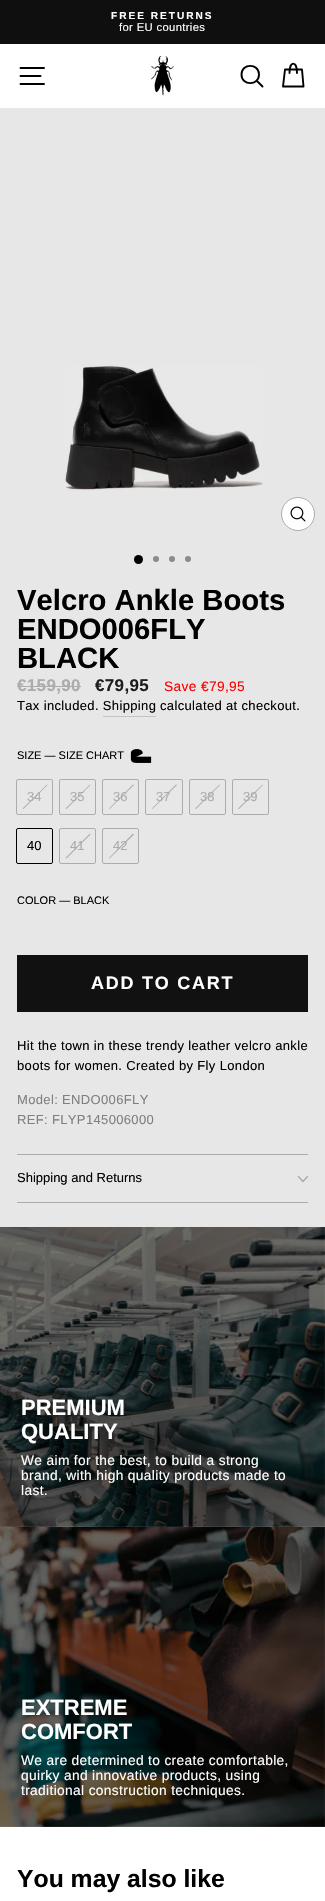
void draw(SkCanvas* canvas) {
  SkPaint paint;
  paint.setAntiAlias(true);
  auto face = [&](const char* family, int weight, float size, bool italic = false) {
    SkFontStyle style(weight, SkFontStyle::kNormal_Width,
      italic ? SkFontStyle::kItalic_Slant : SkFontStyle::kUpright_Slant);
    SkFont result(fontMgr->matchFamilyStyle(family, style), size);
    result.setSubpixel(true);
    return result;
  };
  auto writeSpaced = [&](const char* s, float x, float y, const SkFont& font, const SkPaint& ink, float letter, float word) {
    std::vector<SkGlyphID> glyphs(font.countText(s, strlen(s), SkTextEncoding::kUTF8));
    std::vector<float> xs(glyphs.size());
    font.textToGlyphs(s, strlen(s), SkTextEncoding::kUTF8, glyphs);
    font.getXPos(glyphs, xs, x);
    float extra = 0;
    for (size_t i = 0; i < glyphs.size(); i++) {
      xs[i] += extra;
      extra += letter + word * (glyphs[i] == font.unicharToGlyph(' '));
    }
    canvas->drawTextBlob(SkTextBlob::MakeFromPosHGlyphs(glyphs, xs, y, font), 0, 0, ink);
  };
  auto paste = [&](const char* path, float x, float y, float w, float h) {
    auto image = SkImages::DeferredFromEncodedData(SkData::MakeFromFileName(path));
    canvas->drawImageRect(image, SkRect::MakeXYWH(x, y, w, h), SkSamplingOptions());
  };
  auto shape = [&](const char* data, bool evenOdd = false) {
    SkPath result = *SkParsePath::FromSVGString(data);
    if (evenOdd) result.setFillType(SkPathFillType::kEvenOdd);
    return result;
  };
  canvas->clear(0xffffffff);
  paint.setColor(0xff0f0f0f);
  canvas->drawRect(SkRect::MakeXYWH(0, 0, 325, 44), paint);
  paint.setStroke(true);
  paint.setStrokeWidth(1.9f);
  paint.setStrokeCap(SkPaint::kRound_Cap);
  paint.setStrokeJoin(SkPaint::kRound_Join);
  paint.setColor(0xff000000);
  canvas->drawPath(shape("M20.5 68H44M20.5 76H40.5M20.5 84H44"), paint);
  paste("img/1.png", 151, 56, 23, 40);
  canvas->drawPath(shape("M259 74.5C259 86 241.5 86 241.5 74.5C241.5 63 259 63 259 74.5ZM262.5 86.5L256.5 80.5M289.5 73C289.5 60.5 297 60.5 297 73"), paint);
  canvas->drawPath(shape("M285 69.5H302L303.5 86.5H283Z"), paint);
  paint.setStroke(false);
  paint.setColor(0xffe7e7e7);
  canvas->drawRect(SkRect::MakeXYWH(0, 108, 325, 1119), paint);
  paste("img/2.png", 65, 365, 198, 126);
  paint.setColor(0xffffffff);
  canvas->drawCircle(298, 514, 16.5f, paint);
  paint.setStroke(true);
  paint.setStrokeWidth(1);
  paint.setStrokeCap(SkPaint::kButt_Cap);
  paint.setStrokeJoin(SkPaint::kMiter_Join);
  paint.setColor(0xffacacac);
  canvas->drawCircle(298, 514, 16.5f, paint);
  paste("img/3.png", 290, 506, 16, 16);
  paint.setStroke(false);
  paint.setColor(0xff000000);
  canvas->drawCircle(138.5f, 559.5f, 4.5f, paint);
  paint.setColor(0xff8b8b8b);
  canvas->drawCircle(156, 559, 3, paint);
  canvas->drawCircle(172, 559, 3, paint);
  canvas->drawCircle(188, 559, 3, paint);
  paint.setColor(0xffacacac);
  canvas->drawRect(SkRect::MakeXYWH(17, 686, 64, 1), paint);
  paint.setColor(0xffc4c4c4);
  canvas->drawRect(SkRect::MakeXYWH(103, 716, 53, 1), paint);
  paste("img/4.png", 130, 749, 22, 14);
  paint.setStroke(true);
  paint.setColor(0xffacacac);
  canvas->drawRoundRect(SkRect::MakeXYWH(16.5f, 779.5f, 36, 35), 1.5f, 1.5f, paint);
  paint.setStroke(false);
  canvas->drawPath(shape("M47 784.5L47.5 785L23.5 809L22.5 808.5Z"), paint);
  paint.setStroke(true);
  canvas->drawRoundRect(SkRect::MakeXYWH(59.5f, 779.5f, 36, 35), 1.5f, 1.5f, paint);
  paint.setStroke(false);
  canvas->drawPath(shape("M90 784.5L90.5 785L66.5 809L65.5 808.5Z"), paint);
  paint.setStroke(true);
  canvas->drawRoundRect(SkRect::MakeXYWH(102.5f, 779.5f, 36, 35), 1.5f, 1.5f, paint);
  paint.setStroke(false);
  canvas->drawPath(shape("M133 784.5L134 785L109.5 809L109 808.5Z"), paint);
  paint.setStroke(true);
  canvas->drawRoundRect(SkRect::MakeXYWH(145.5f, 779.5f, 37, 35), 1.5f, 1.5f, paint);
  paint.setStroke(false);
  canvas->drawPath(shape("M176 784.5L177 785L152.5 809L152 808.5Z"), paint);
  paint.setStroke(true);
  canvas->drawRoundRect(SkRect::MakeXYWH(189.5f, 779.5f, 36, 35), 1.5f, 1.5f, paint);
  paint.setStroke(false);
  canvas->drawPath(shape("M219.5 784.5L220 785L196 809L195 808.5Z"), paint);
  paint.setStroke(true);
  canvas->drawRoundRect(SkRect::MakeXYWH(232.5f, 779.5f, 36, 35), 1.5f, 1.5f, paint);
  paint.setStroke(false);
  canvas->drawPath(shape("M262.5 784.5L263 785L239 809L238 808.5Z"), paint);
  paint.setStroke(true);
  paint.setColor(0xff000000);
  canvas->drawRoundRect(SkRect::MakeXYWH(16.5f, 828.5f, 36, 35), 1.5f, 1.5f, paint);
  paint.setColor(0xffacacac);
  canvas->drawRoundRect(SkRect::MakeXYWH(59.5f, 828.5f, 36, 35), 1.5f, 1.5f, paint);
  paint.setStroke(false);
  canvas->drawPath(shape("M90 833.5L90.5 834.5L66.5 858.5L65.5 858Z"), paint);
  paint.setStroke(true);
  canvas->drawRoundRect(SkRect::MakeXYWH(102.5f, 828.5f, 36, 35), 1.5f, 1.5f, paint);
  paint.setStroke(false);
  canvas->drawPath(shape("M133 833.5L134 834.5L109.5 858.5L109 858Z"), paint);
  {
    const struct { float x, y, w, h; SkColor color; } items[] = {
      {17, 955, 291, 57, 0xff111111},
      {17, 1154, 291, 1, 0xffacacac},
      {17, 1202, 291, 1, 0xffacacac},
    };
    for (auto [x, y, w, h, color] : items) {
      paint.setColor(color);
      canvas->drawRect(SkRect::MakeXYWH(x, y, w, h), paint);
    }
  }
  paint.setStroke(true);
  paint.setStrokeWidth(1.4f);
  paint.setStrokeCap(SkPaint::kRound_Cap);
  paint.setStrokeJoin(SkPaint::kRound_Join);
  canvas->drawPath(shape("M298.5 1176.5L303 1181.5L307.5 1176.5"), paint);
  paste("img/5.png", 0, 1227, 325, 300);
  paint.setStroke(false);
  {
    const SkColor colors[] = {0x33000000, 0x00000000};
    const float stops[] = {0, 0.6f};
    SkMatrix m = SkMatrix::Translate(163, 1451).preScale(513, 249);
    paint.setShader(SkGradientShader::MakeRadial({0, 0}, 1, colors, stops, 2, SkTileMode::kClamp, 0, &m));
    paint.setAlpha(255);
  }
  canvas->drawRect(SkRect::MakeXYWH(0, 1323, 325, 204), paint);
  paste("img/6.png", 0, 1527, 325, 300);
  {
    const SkColor colors[] = {0x33000000, 0x00000000};
    const float stops[] = {0, 0.6f};
    SkMatrix m = SkMatrix::Translate(163, 1751).preScale(513, 249);
    paint.setShader(SkGradientShader::MakeRadial({0, 0}, 1, colors, stops, 2, SkTileMode::kClamp, 0, &m));
    paint.setAlpha(255);
  }
  canvas->drawRect(SkRect::MakeXYWH(0, 1621, 325, 206), paint);
  auto f0 = face("Arimo", 700, 10.1f);
  paint.setShader(nullptr);
  paint.setColor(0xffffffff);
  writeSpaced("FREE RETURNS", 111, 19, f0, paint, 2, 0);
  auto f1 = face("Liberation Sans", 400, 11.25f);
  writeSpaced("for EU countries", 119, 31, f1, paint, 0.35f, 0);
  auto f2 = face("Arimo", 700, 29.25f);
  paint.setColor(0xff000000);
  {
    const struct { const char* s; float x, y; } items[] = {
      {"Velcro Ankle Boots", 17, 610},
      {"ENDO006FLY", 17, 639},
      {"BLACK", 17, 668},
    };
    for (auto [s, x, y] : items) {
      canvas->drawString(s, x, y, f2, paint);
    }
  }
  auto f3 = face("Arimo", 700, 17);
  paint.setColor(0xffacacac);
  writeSpaced("€159,90", 17, 691, f3, paint, 0.35f, 0);
  paint.setColor(0xff1c1d1d);
  writeSpaced("€79,95", 95, 691, f3, paint, 0.35f, 0);
  auto f4 = face("Liberation Sans", 400, 13.75f);
  paint.setColor(0xffff0000);
  writeSpaced("Save €79,95", 164, 691, f4, paint, 0.35f, 0);
  auto f5 = face("Liberation Sans", 400, 13);
  paint.setColor(0xff000000);
  writeSpaced("Tax included. Shipping", 17, 710, f5, paint, 0.35f, 0);
  writeSpaced("calculated at checkout.", 160, 710, f5, paint, 0.35f, 0);
  auto f6 = face("Liberation Sans", 400, 11);
  canvas->drawString("SIZE — SIZE CHART", 17, 759, f6, paint);
  paint.setColor(0xffacacac);
  {
    const struct { const char* s; float x, y; } items[] = {
      {"34", 27, 801},
      {"35", 70, 801},
      {"36", 113, 801},
      {"37", 156, 801},
      {"38", 200, 801},
      {"39", 243, 801},
    };
    for (auto [s, x, y] : items) {
      canvas->drawString(s, x, y, f5, paint);
    }
  }
  paint.setColor(0xff000000);
  canvas->drawString("40", 27, 850, f5, paint);
  paint.setColor(0xffacacac);
  canvas->drawString("41", 70, 850, f5, paint);
  canvas->drawString("42", 113, 850, f5, paint);
  paint.setColor(0xff000000);
  canvas->drawString("COLOR — BLACK", 17, 904, f6, paint);
  auto f7 = face("Arimo", 700, 18);
  paint.setColor(0xffffffff);
  writeSpaced("ADD TO CART", 91, 989, f7, paint, 1.75f, 0);
  paint.setColor(0xff000000);
  writeSpaced("Hit the town in these trendy leather velcro ankle", 17, 1050, f5, paint, 0.35f, 0);
  writeSpaced("boots for women. Created by Fly London", 17, 1070, f5, paint, 0.35f, 0);
  paint.setColor(0xff808080);
  writeSpaced("Model: ENDO006FLY", 17, 1104, f5, paint, 0.35f, 0);
  writeSpaced("REF: FLYP145006000", 17, 1124, f5, paint, 0.35f, 0);
  paint.setColor(0xff000000);
  canvas->drawString("Shipping and Returns", 17, 1182, f5, paint);
  auto f8 = face("Arimo", 700, 22);
  paint.setColor(0xffffffff);
  canvas->drawString("PREMIUM", 21, 1415, f8, paint);
  canvas->drawString("QUALITY", 21, 1439, f8, paint);
  {
    const struct { const char* s; float x, y; } items[] = {
      {"We aim for the best, to build a strong", 21, 1465},
      {"brand, with high quality products made to", 21, 1480},
      {"last.", 21, 1495},
    };
    for (auto [s, x, y] : items) {
      writeSpaced(s, x, y, f4, paint, 0.35f, 0);
    }
  }
  canvas->drawString("EXTREME", 21, 1715, f8, paint);
  canvas->drawString("COMFORT", 21, 1739, f8, paint);
  {
    const struct { const char* s; float x, y; } items[] = {
      {"We are determined to create comfortable,", 21, 1765},
      {"quirky and innovative products, using", 21, 1780},
      {"traditional construction techniques.", 21, 1795},
    };
    for (auto [s, x, y] : items) {
      writeSpaced(s, x, y, f4, paint, 0.35f, 0);
    }
  }
  auto f9 = face("Arimo", 700, 24.75f);
  paint.setColor(0xff000000);
  canvas->drawString("You may also like", 17, 1887, f9, paint);
}
